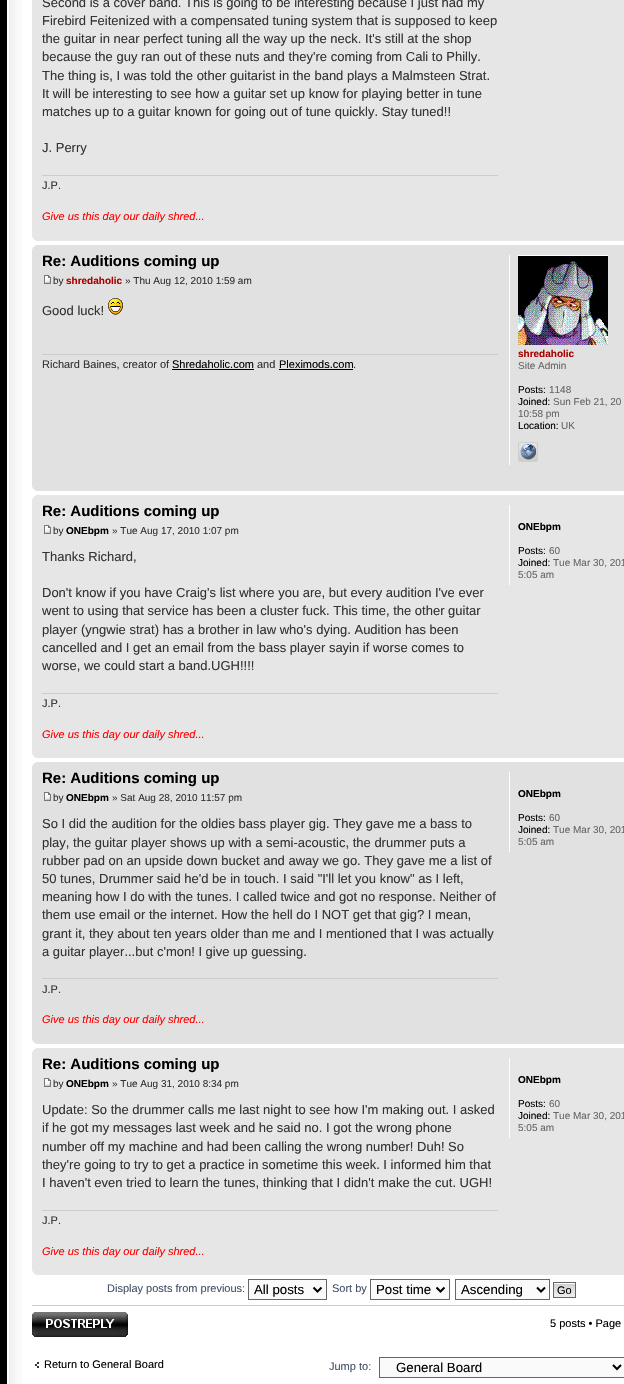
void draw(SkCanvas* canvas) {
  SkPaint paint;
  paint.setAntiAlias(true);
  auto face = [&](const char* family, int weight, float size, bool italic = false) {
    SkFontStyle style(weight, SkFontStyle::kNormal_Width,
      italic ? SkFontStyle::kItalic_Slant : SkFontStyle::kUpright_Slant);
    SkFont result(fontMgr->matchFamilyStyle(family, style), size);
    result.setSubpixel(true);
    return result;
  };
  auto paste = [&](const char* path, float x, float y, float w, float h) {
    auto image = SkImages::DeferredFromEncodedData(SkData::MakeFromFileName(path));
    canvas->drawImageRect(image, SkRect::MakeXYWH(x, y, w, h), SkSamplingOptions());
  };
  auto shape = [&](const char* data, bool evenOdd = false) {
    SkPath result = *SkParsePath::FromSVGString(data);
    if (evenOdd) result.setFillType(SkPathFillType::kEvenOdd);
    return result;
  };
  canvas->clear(0xff000000);
  paste("img/1.png", 7, 0, 15, 1384);
  {
    const struct { float x, y, w, h; SkColor color; } items[] = {
      {22, 0, 602, 1384, 0xffffffff},
      {32, 0, 592, 241, 0xffe6e6e6},
      {42, 175, 456, 1, 0xffcccccc},
    };
    for (auto [x, y, w, h, color] : items) {
      paint.setColor(color);
      canvas->drawRect(SkRect::MakeXYWH(x, y, w, h), paint);
    }
  }
  paste("img/2.png", 32, 236, 5, 5);
  paint.setColor(0xffe1e1e1);
  canvas->drawRect(SkRect::MakeXYWH(32, 245, 592, 246), paint);
  paste("img/3.png", 32, 245, 5, 5);
  paste("img/4.png", 44, 275, 7, 9);
  paste("img/5.png", 108, 298, 15, 17);
  {
    const struct { float x, y, w, h; SkColor color; } items[] = {
      {42, 354, 456, 1, 0xffcccccc},
      {172, 369, 82, 1, 0xff000000},
      {279, 369, 74, 1, 0xff000000},
      {509, 255, 1, 210, 0xffffffff},
    };
    for (auto [x, y, w, h, color] : items) {
      paint.setColor(color);
      canvas->drawRect(SkRect::MakeXYWH(x, y, w, h), paint);
    }
  }
  paste("img/6.png", 518, 255, 90, 90);
  paste("img/7.png", 518, 442, 20, 20);
  paste("img/8.png", 32, 486, 5, 5);
  paint.setColor(0xffe6e6e6);
  canvas->drawRect(SkRect::MakeXYWH(32, 495, 592, 263), paint);
  paste("img/9.png", 32, 495, 5, 5);
  paste("img/10.png", 44, 525, 7, 9);
  paint.setColor(0xffcccccc);
  canvas->drawRect(SkRect::MakeXYWH(42, 693, 456, 1), paint);
  paint.setColor(0xffffffff);
  canvas->drawRect(SkRect::MakeXYWH(509, 505, 1, 80), paint);
  paste("img/2.png", 32, 753, 5, 5);
  paint.setColor(0xffe1e1e1);
  canvas->drawRect(SkRect::MakeXYWH(32, 762, 592, 282), paint);
  paste("img/3.png", 32, 762, 5, 5);
  paste("img/4.png", 44, 792, 7, 9);
  paint.setColor(0xffcccccc);
  canvas->drawRect(SkRect::MakeXYWH(42, 978, 456, 1), paint);
  paint.setColor(0xffffffff);
  canvas->drawRect(SkRect::MakeXYWH(509, 772, 1, 80), paint);
  paste("img/8.png", 32, 1039, 5, 5);
  paint.setColor(0xffe6e6e6);
  canvas->drawRect(SkRect::MakeXYWH(32, 1048, 592, 227), paint);
  paste("img/9.png", 32, 1048, 5, 5);
  paste("img/10.png", 44, 1078, 7, 9);
  paint.setColor(0xffcccccc);
  canvas->drawRect(SkRect::MakeXYWH(42, 1210, 456, 1), paint);
  paint.setColor(0xffffffff);
  canvas->drawRect(SkRect::MakeXYWH(509, 1058, 1, 80), paint);
  paste("img/2.png", 32, 1270, 5, 5);
  paint.setColor(0xfffafafa);
  canvas->drawRect(SkRect::MakeXYWH(248.5f, 1279.5f, 78, 20), paint);
  paint.setStroke(true);
  paint.setStrokeWidth(1);
  paint.setColor(0xff666666);
  canvas->drawRect(SkRect::MakeXYWH(248.5f, 1279.5f, 78, 20), paint);
  paint.setStrokeWidth(2);
  paint.setColor(0xff000000);
  canvas->drawPath(shape("M313.5 1287.5L317.5 1291.5L321.5 1287.5"), paint);
  paint.setStroke(false);
  paint.setColor(0xfffafafa);
  canvas->drawRect(SkRect::MakeXYWH(370.5f, 1279.5f, 79, 20), paint);
  paint.setStroke(true);
  paint.setStrokeWidth(1);
  paint.setColor(0xff666666);
  canvas->drawRect(SkRect::MakeXYWH(370.5f, 1279.5f, 79, 20), paint);
  paint.setStrokeWidth(2);
  paint.setColor(0xff000000);
  canvas->drawPath(shape("M436.5 1287.5L440.5 1291.5L444.5 1287.5"), paint);
  paint.setStroke(false);
  paint.setColor(0xfffafafa);
  canvas->drawRect(SkRect::MakeXYWH(455.5f, 1279.5f, 94, 20), paint);
  paint.setStroke(true);
  paint.setStrokeWidth(1);
  paint.setColor(0xff666666);
  canvas->drawRect(SkRect::MakeXYWH(455.5f, 1279.5f, 94, 20), paint);
  paint.setStrokeWidth(2);
  paint.setColor(0xff000000);
  canvas->drawPath(shape("M537 1287.5L541 1291.5L545 1287.5"), paint);
  paste("img/11.png", 554, 1283, 21, 14);
  paint.setStrokeWidth(1);
  paint.setColor(0xff666666);
  canvas->drawRect(SkRect::MakeXYWH(553.5f, 1282.5f, 22, 15), paint);
  paint.setStroke(false);
  paint.setColor(0xffcccccc);
  canvas->drawRect(SkRect::MakeXYWH(32, 1305, 592, 1), paint);
  paste("img/12.png", 32, 1312, 96, 25);
  paste("img/13.png", 35, 1362, 4, 6);
  paint.setColor(0xfffafafa);
  canvas->drawRect(SkRect::MakeXYWH(379.5f, 1357.5f, 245, 20), paint);
  paint.setStroke(true);
  paint.setColor(0xff666666);
  canvas->drawRect(SkRect::MakeXYWH(379.5f, 1357.5f, 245, 20), paint);
  paint.setStrokeWidth(2);
  paint.setColor(0xff000000);
  canvas->drawPath(shape("M613 1365L617 1369L621 1365"), paint);
  auto f0 = face("Liberation Sans", 400, 13);
  paint.setStroke(false);
  paint.setColor(0xff333333);
  {
    const struct { const char* s; float x, y; } items[] = {
      {"Second is a cover band. This is going to be interesting because I just had my", 42, 7},
      {"Firebird Feitenized with a compensated tuning system that is supposed to keep", 42, 25},
      {"the guitar in near perfect tuning all the way up the neck. It's still at the shop", 42, 43},
      {"because the guy ran out of these nuts and they're coming from Cali to Philly.", 42, 61},
      {"The thing is, I was told the other guitarist in the band plays a Malmsteen Strat.", 42, 80},
      {"It will be interesting to see how a guitar set up know for playing better in tune", 42, 98},
      {"matches up to a guitar known for going out of tune quickly. Stay tuned!!", 42, 116},
      {"J. Perry", 42, 152},
    };
    for (auto [s, x, y] : items) {
      canvas->drawString(s, x, y, f0, paint);
    }
  }
  auto f1 = face("Liberation Sans", 400, 11);
  canvas->drawString("J.P.", 42, 189, f1, paint);
  auto f2 = face("Liberation Sans", 400, 11, true);
  paint.setColor(0xffff0000);
  canvas->drawString("Give us this day our daily shred...", 42, 220, f2, paint);
  auto f3 = face("Liberation Sans", 700, 15);
  paint.setColor(0xff000000);
  canvas->drawString("Re: Auditions coming up", 42, 266, f3, paint);
  auto f4 = face("Liberation Sans", 400, 10);
  paint.setColor(0xff333333);
  canvas->drawString("by", 53, 284, f4, paint);
  auto f5 = face("Liberation Sans", 700, 10);
  paint.setColor(0xffaa0000);
  canvas->drawString("shredaholic", 66, 284, f5, paint);
  paint.setColor(0xff333333);
  canvas->drawString("» Thu Aug 12, 2010 1:59 am", 125, 284, f4, paint);
  canvas->drawString("Good luck!", 42, 315, f0, paint);
  canvas->drawString("Richard Baines, creator of", 42, 368, f1, paint);
  paint.setColor(0xff000000);
  canvas->drawString("Shredaholic.com", 172, 368, f1, paint);
  paint.setColor(0xff333333);
  canvas->drawString("and", 257, 368, f1, paint);
  paint.setColor(0xff000000);
  canvas->drawString("Pleximods.com", 279, 368, f1, paint);
  paint.setColor(0xff333333);
  canvas->drawString(".", 353, 368, f1, paint);
  paint.setColor(0xffaa0000);
  canvas->drawString("shredaholic", 518, 357, f5, paint);
  paint.setColor(0xff666666);
  canvas->drawString("Site Admin", 518, 369, f4, paint);
  paint.setColor(0xff000000);
  canvas->drawString("Posts:", 518, 393, f4, paint);
  paint.setColor(0xff666666);
  canvas->drawString("1148", 549, 393, f4, paint);
  paint.setColor(0xff000000);
  canvas->drawString("Joined:", 518, 405, f4, paint);
  paint.setColor(0xff666666);
  canvas->drawString("Sun Feb 21, 20", 553, 405, f4, paint);
  canvas->drawString("10:58 pm", 518, 417, f4, paint);
  paint.setColor(0xff000000);
  canvas->drawString("Location:", 518, 429, f4, paint);
  paint.setColor(0xff666666);
  canvas->drawString("UK", 561, 429, f4, paint);
  paint.setColor(0xff000000);
  canvas->drawString("Re: Auditions coming up", 42, 516, f3, paint);
  paint.setColor(0xff333333);
  canvas->drawString("by", 53, 534, f4, paint);
  paint.setColor(0xff000000);
  canvas->drawString("ONEbpm", 66, 534, f5, paint);
  paint.setColor(0xff333333);
  canvas->drawString("» Tue Aug 17, 2010 1:07 pm", 112, 534, f4, paint);
  {
    const struct { const char* s; float x, y; } items[] = {
      {"Thanks Richard,", 42, 561},
      {"Don't know if you have Craig's list where you are, but every audition I've ever", 42, 597},
      {"went to using that service has been a cluster fuck. This time, the other guitar", 42, 615},
      {"player (yngwie strat) has a brother in law who's dying. Audition has been", 42, 634},
      {"cancelled and I get an email from the bass player sayin if worse comes to", 42, 652},
      {"worse, we could start a band.UGH!!!!", 42, 670},
    };
    for (auto [s, x, y] : items) {
      canvas->drawString(s, x, y, f0, paint);
    }
  }
  canvas->drawString("J.P.", 42, 707, f1, paint);
  paint.setColor(0xffff0000);
  canvas->drawString("Give us this day our daily shred...", 42, 738, f2, paint);
  paint.setColor(0xff000000);
  canvas->drawString("ONEbpm", 518, 530, f5, paint);
  canvas->drawString("Posts:", 518, 554, f4, paint);
  paint.setColor(0xff666666);
  canvas->drawString("60", 549, 554, f4, paint);
  paint.setColor(0xff000000);
  canvas->drawString("Joined:", 518, 566, f4, paint);
  paint.setColor(0xff666666);
  canvas->drawString("Tue Mar 30, 201", 553, 566, f4, paint);
  canvas->drawString("5:05 am", 518, 578, f4, paint);
  paint.setColor(0xff000000);
  canvas->drawString("Re: Auditions coming up", 42, 783, f3, paint);
  paint.setColor(0xff333333);
  canvas->drawString("by", 53, 801, f4, paint);
  paint.setColor(0xff000000);
  canvas->drawString("ONEbpm", 66, 801, f5, paint);
  paint.setColor(0xff333333);
  canvas->drawString("» Sat Aug 28, 2010 11:57 pm", 112, 801, f4, paint);
  {
    const struct { const char* s; float x, y; } items[] = {
      {"So I did the audition for the oldies bass player gig. They gave me a bass to", 42, 828},
      {"play, the guitar player shows up with a semi-acoustic, the drummer puts a", 42, 847},
      {"rubber pad on an upside down bucket and away we go. They gave me a list of", 42, 865},
      {"50 tunes, Drummer said he'd be in touch. I said \"I'll let you know\" as I left,", 42, 883},
      {"meaning how I do with the tunes. I called twice and got no response. Neither of", 42, 901},
      {"them use email or the internet. How the hell do I NOT get that gig? I mean,", 42, 919},
      {"grant it, they about ten years older than me and I mentioned that I was actually", 42, 938},
      {"a guitar player...but c'mon! I give up guessing.", 42, 956},
    };
    for (auto [s, x, y] : items) {
      canvas->drawString(s, x, y, f0, paint);
    }
  }
  canvas->drawString("J.P.", 42, 993, f1, paint);
  paint.setColor(0xffff0000);
  canvas->drawString("Give us this day our daily shred...", 42, 1023, f2, paint);
  paint.setColor(0xff000000);
  canvas->drawString("ONEbpm", 518, 797, f5, paint);
  canvas->drawString("Posts:", 518, 821, f4, paint);
  paint.setColor(0xff666666);
  canvas->drawString("60", 549, 821, f4, paint);
  paint.setColor(0xff000000);
  canvas->drawString("Joined:", 518, 833, f4, paint);
  paint.setColor(0xff666666);
  canvas->drawString("Tue Mar 30, 201", 553, 833, f4, paint);
  canvas->drawString("5:05 am", 518, 845, f4, paint);
  paint.setColor(0xff000000);
  canvas->drawString("Re: Auditions coming up", 42, 1069, f3, paint);
  paint.setColor(0xff333333);
  canvas->drawString("by", 53, 1087, f4, paint);
  paint.setColor(0xff000000);
  canvas->drawString("ONEbpm", 66, 1087, f5, paint);
  paint.setColor(0xff333333);
  canvas->drawString("» Tue Aug 31, 2010 8:34 pm", 112, 1087, f4, paint);
  {
    const struct { const char* s; float x, y; } items[] = {
      {"Update: So the drummer calls me last night to see how I'm making out. I asked", 42, 1114},
      {"if he got my messages last week and he said no. I got the wrong phone", 42, 1132},
      {"number off my machine and had been calling the wrong number! Duh! So", 42, 1151},
      {"they're going to try to get a practice in sometime this week. I informed him that", 42, 1169},
      {"I haven't even tried to learn the tunes, thinking that I didn't make the cut. UGH!", 42, 1187},
    };
    for (auto [s, x, y] : items) {
      canvas->drawString(s, x, y, f0, paint);
    }
  }
  canvas->drawString("J.P.", 42, 1224, f1, paint);
  paint.setColor(0xffff0000);
  canvas->drawString("Give us this day our daily shred...", 42, 1255, f2, paint);
  paint.setColor(0xff000000);
  canvas->drawString("ONEbpm", 518, 1083, f5, paint);
  canvas->drawString("Posts:", 518, 1107, f4, paint);
  paint.setColor(0xff666666);
  canvas->drawString("60", 549, 1107, f4, paint);
  paint.setColor(0xff000000);
  canvas->drawString("Joined:", 518, 1119, f4, paint);
  paint.setColor(0xff666666);
  canvas->drawString("Tue Mar 30, 201", 553, 1119, f4, paint);
  canvas->drawString("5:05 am", 518, 1131, f4, paint);
  paint.setColor(0xff425067);
  canvas->drawString("Display posts from previous:", 107, 1292, f1, paint);
  auto f6 = face("Liberation Sans", 400, 13.25f);
  paint.setColor(0xff000000);
  canvas->drawString("All posts", 254, 1294, f6, paint);
  paint.setColor(0xff425067);
  canvas->drawString("Sort by", 332, 1292, f1, paint);
  paint.setColor(0xff000000);
  canvas->drawString("Post time", 376, 1294, f6, paint);
  canvas->drawString("Ascending", 461, 1294, f6, paint);
  {
    const struct { const char* s; float x, y; } items[] = {
      {"Go", 557, 1294},
      {"5 posts • Page", 550, 1327},
      {"Return to General Board", 44, 1368},
    };
    for (auto [s, x, y] : items) {
      canvas->drawString(s, x, y, f1, paint);
    }
  }
  paint.setColor(0xff425067);
  canvas->drawString("Jump to:", 329, 1370, f1, paint);
  paint.setColor(0xff000000);
  canvas->drawString("General Board", 396, 1372, f6, paint);
}
